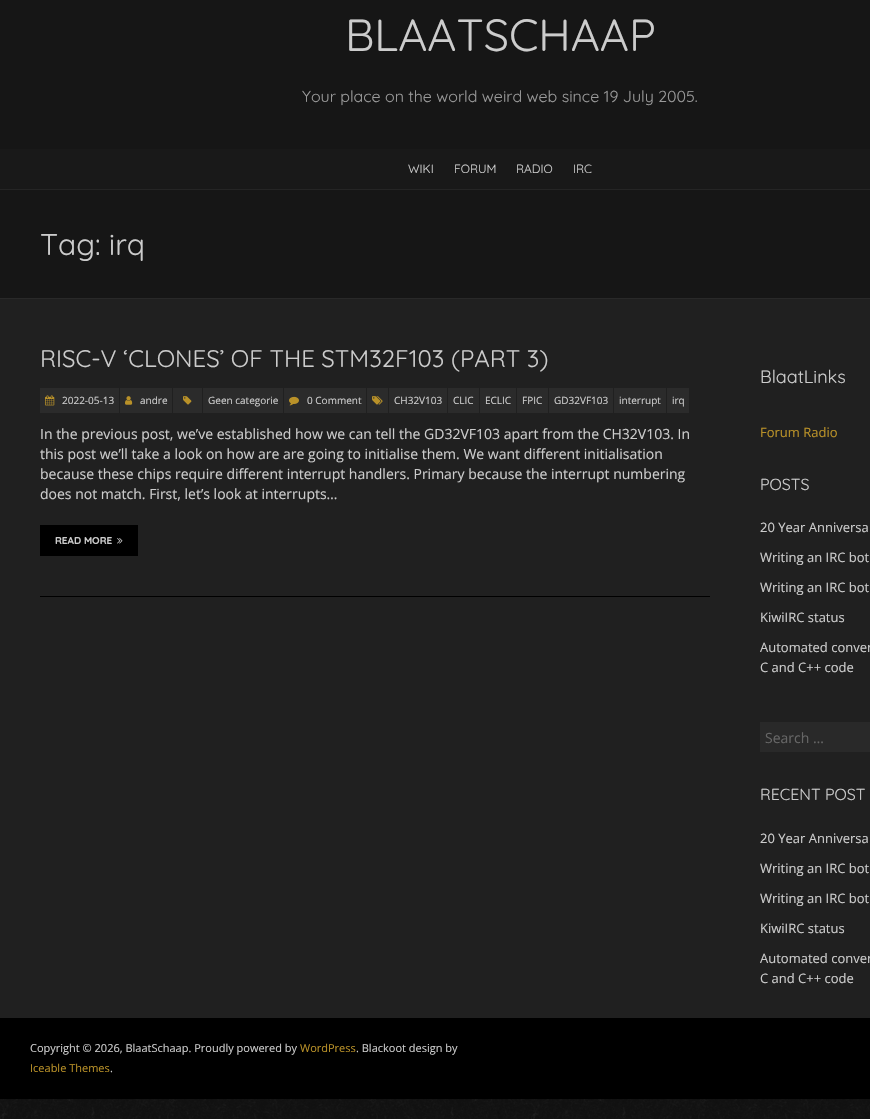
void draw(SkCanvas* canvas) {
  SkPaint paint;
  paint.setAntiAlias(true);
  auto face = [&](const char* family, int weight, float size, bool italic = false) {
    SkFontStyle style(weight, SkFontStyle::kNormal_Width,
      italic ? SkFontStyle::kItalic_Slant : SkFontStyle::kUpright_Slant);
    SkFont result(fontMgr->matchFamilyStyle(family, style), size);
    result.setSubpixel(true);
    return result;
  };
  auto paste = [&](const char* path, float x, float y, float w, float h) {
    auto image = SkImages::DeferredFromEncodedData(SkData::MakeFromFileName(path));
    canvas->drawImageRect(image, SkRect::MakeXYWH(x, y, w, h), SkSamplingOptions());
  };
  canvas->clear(0xffffffff);
  paste("img/1.png", 0, 1099, 870, 20);
  {
    const struct { float x, y, w, h; SkColor color; } items[] = {
      {0, 299, 870, 719, 0xff202020},
      {0, 0, 870, 149, 0xff161616},
      {0, 149, 870, 40, 0xff191919},
      {0, 189, 870, 1, 0xff252525},
      {0, 190, 870, 108, 0xff161616},
      {0, 298, 870, 1, 0xff292929},
      {40, 388, 79, 25, 0xff2b2b2b},
    };
    for (auto [x, y, w, h, color] : items) {
      paint.setColor(color);
      canvas->drawRect(SkRect::MakeXYWH(x, y, w, h), paint);
    }
  }
  paste("img/2.png", 45, 395, 10, 11);
  canvas->drawRect(SkRect::MakeXYWH(120, 388, 52, 25), paint);
  paste("img/3.png", 125, 396, 8, 9);
  canvas->drawRect(SkRect::MakeXYWH(173, 388, 29, 25), paint);
  paste("img/4.png", 183, 396, 9, 9);
  canvas->drawRect(SkRect::MakeXYWH(203, 388, 80, 25), paint);
  canvas->drawRect(SkRect::MakeXYWH(284, 388, 82, 25), paint);
  paste("img/5.png", 289, 396, 10, 10);
  canvas->drawRect(SkRect::MakeXYWH(367, 388, 21, 25), paint);
  paste("img/6.png", 372, 396, 11, 9);
  {
    const struct { float x, y, w, h; SkColor color; } items[] = {
      {389, 388, 58, 25, 0xff2b2b2b},
      {448, 388, 31, 25, 0xff2b2b2b},
      {480, 388, 36, 25, 0xff2b2b2b},
      {517, 388, 31, 25, 0xff2b2b2b},
      {549, 388, 64, 25, 0xff2b2b2b},
      {614, 388, 52, 25, 0xff2b2b2b},
      {667, 388, 22, 25, 0xff2b2b2b},
      {40, 525, 98, 31, 0xff000000},
    };
    for (auto [x, y, w, h, color] : items) {
      paint.setColor(color);
      canvas->drawRect(SkRect::MakeXYWH(x, y, w, h), paint);
    }
  }
  paste("img/7.png", 117, 538, 6, 6);
  {
    const struct { float x, y, w, h; SkColor color; } items[] = {
      {40, 596, 670, 1, 0xff000000},
      {760, 722, 110, 30, 0xff292929},
      {0, 1018, 870, 81, 0xff000000},
    };
    for (auto [x, y, w, h, color] : items) {
      paint.setColor(color);
      canvas->drawRect(SkRect::MakeXYWH(x, y, w, h), paint);
    }
  }
  auto f0 = face("Quicksand", 400, 45);
  paint.setColor(0xffcccccc);
  canvas->drawString("BLAATSCHAAP", 345, 51, f0, paint);
  auto f1 = face("Quicksand", 400, 16);
  paint.setColor(0xff999999);
  canvas->drawString("Your place on the world weird web since 19 July 2005.", 302, 102, f1, paint);
  auto f2 = face("Quicksand", 400, 12);
  paint.setColor(0xffcccccc);
  {
    const struct { const char* s; float x, y; } items[] = {
      {"WIKI", 408, 173},
      {"FORUM", 454, 173},
      {"RADIO", 516, 173},
      {"IRC", 573, 173},
    };
    for (auto [s, x, y] : items) {
      canvas->drawString(s, x, y, f2, paint);
    }
  }
  auto f3 = face("Quicksand", 400, 30);
  canvas->drawString("Tag: irq", 40, 255, f3, paint);
  auto f4 = face("Quicksand", 400, 24);
  canvas->drawString("RISC-V ‘CLONES’ OF THE STM32F103 (PART 3)", 40, 367, f4, paint);
  auto f5 = face("Open Sans", 400, 10);
  {
    const struct { const char* s; float x, y; } items[] = {
      {"2022-05-13", 62, 404},
      {"andre", 140, 404},
      {"Geen categorie", 208, 404},
      {"0 Comment", 307, 404},
      {"CH32V103", 394, 404},
      {"CLIC", 453, 404},
      {"ECLIC", 485, 404},
      {"FPIC", 522, 404},
      {"GD32VF103", 554, 404},
      {"interrupt", 619, 404},
      {"irq", 672, 404},
    };
    for (auto [s, x, y] : items) {
      canvas->drawString(s, x, y, f5, paint);
    }
  }
  auto f6 = face("Open Sans", 400, 14);
  {
    const struct { const char* s; float x, y; } items[] = {
      {"In the previous post, we’ve established how we can tell the GD32VF103 apart from the CH32V103. In", 40, 439},
      {"this post we’ll take a look on how are are going to initialise them. We want different initialisation", 40, 459},
      {"because these chips require different interrupt handlers. Primary because the interrupt numbering", 40, 479},
      {"does not match. First, let’s look at interrupts…", 40, 499},
    };
    for (auto [s, x, y] : items) {
      canvas->drawString(s, x, y, f6, paint);
    }
  }
  auto f7 = face("Quicksand", 700, 10);
  canvas->drawString("READ MORE", 55, 544, f7, paint);
  auto f8 = face("Quicksand", 400, 18);
  canvas->drawString("BlaatLinks", 760, 383, f8, paint);
  auto f9 = face("Open Sans", 400, 13);
  paint.setColor(0xffb99128);
  canvas->drawString("Forum Radio", 760, 437, f9, paint);
  paint.setColor(0xffcccccc);
  canvas->drawString("POSTS", 760, 490, f1, paint);
  {
    const struct { const char* s; float x, y; } items[] = {
      {"20 Year Anniversa", 760, 532},
      {"Writing an IRC bot", 760, 562},
      {"Writing an IRC bot", 760, 592},
      {"KiwiIRC status", 760, 622},
      {"Automated conver", 760, 652},
      {"C and C++ code", 760, 672},
    };
    for (auto [s, x, y] : items) {
      canvas->drawString(s, x, y, f9, paint);
    }
  }
  paint.setColor(0xff666666);
  canvas->drawString("Search …", 765, 743, f6, paint);
  paint.setColor(0xffcccccc);
  canvas->drawString("RECENT POST", 760, 800, f1, paint);
  {
    const struct { const char* s; float x, y; } items[] = {
      {"20 Year Anniversa", 760, 843},
      {"Writing an IRC bot", 760, 873},
      {"Writing an IRC bot", 760, 903},
      {"KiwiIRC status", 760, 933},
      {"Automated conver", 760, 963},
      {"C and C++ code", 760, 983},
    };
    for (auto [s, x, y] : items) {
      canvas->drawString(s, x, y, f9, paint);
    }
  }
  auto f10 = face("Open Sans", 400, 11);
  canvas->drawString("Copyright © 2026, BlaatSchaap. Proudly powered by", 30, 1052, f10, paint);
  paint.setColor(0xffb99128);
  canvas->drawString("WordPress", 300, 1052, f10, paint);
  paint.setColor(0xffcccccc);
  canvas->drawString(". Blackoot design by", 356, 1052, f10, paint);
  paint.setColor(0xffb99128);
  canvas->drawString("Iceable Themes", 30, 1072, f10, paint);
  paint.setColor(0xffcccccc);
  canvas->drawString(".", 110, 1072, f10, paint);
}
